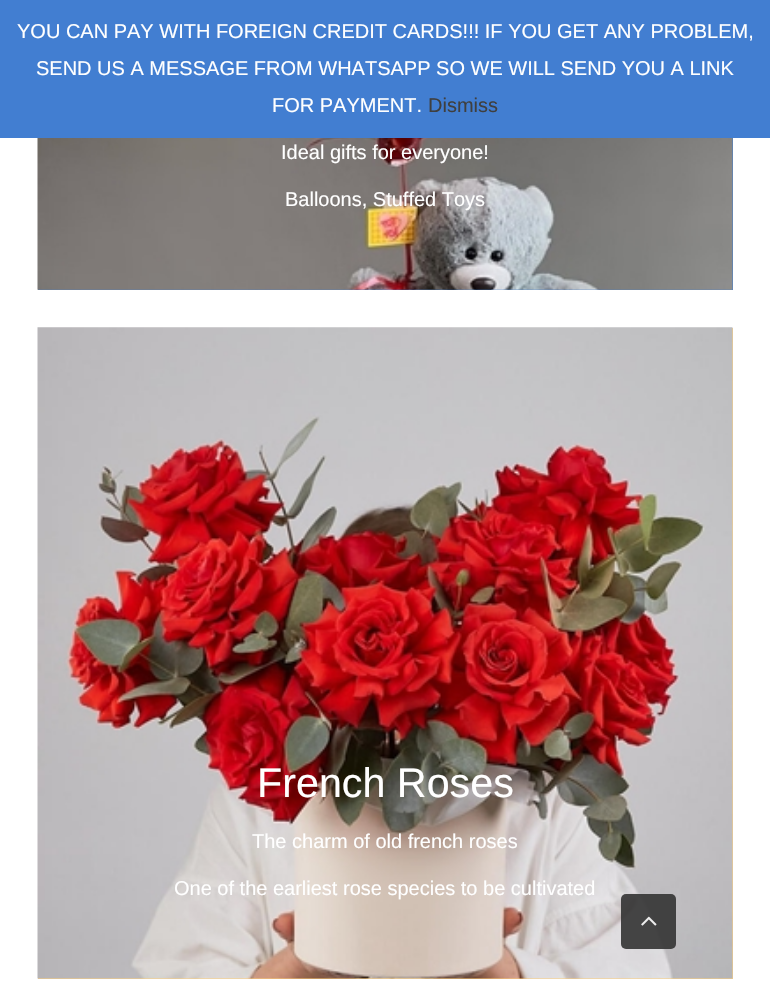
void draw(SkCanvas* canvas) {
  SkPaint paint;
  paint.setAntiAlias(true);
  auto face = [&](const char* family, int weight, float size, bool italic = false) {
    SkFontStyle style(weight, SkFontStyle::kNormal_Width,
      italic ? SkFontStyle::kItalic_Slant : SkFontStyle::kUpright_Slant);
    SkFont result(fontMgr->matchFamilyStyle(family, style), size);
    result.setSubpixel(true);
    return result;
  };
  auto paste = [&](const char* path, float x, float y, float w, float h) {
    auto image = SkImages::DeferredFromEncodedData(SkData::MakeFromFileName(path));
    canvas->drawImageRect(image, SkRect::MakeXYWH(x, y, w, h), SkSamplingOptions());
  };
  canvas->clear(0xffffffff);
  paint.setColor(0xff427ed1);
  canvas->drawRect(SkRect::MakeXYWH(0, 0, 770, 138), paint);
  canvas->drawRect(SkRect::MakeXYWH(38, 138, 695, 152), paint);
  paste("img/1.png", 37, 138, 696, 152);
  paint.setColor(0xffffce78);
  canvas->drawRect(SkRect::MakeXYWH(38, 328, 695, 651), paint);
  paste("img/2.png", 37, 327, 696, 652);
  paint.setColor(0xe6333333);
  canvas->drawRoundRect(SkRect::MakeXYWH(621, 894, 55, 55), 5, 5, paint);
  paste("img/3.png", 641, 916, 16, 10);
  auto f0 = face("Liberation Sans", 400, 20);
  paint.setColor(0xffffffff);
  {
    const struct { const char* s; float x, y; } items[] = {
      {"YOU CAN PAY WITH FOREIGN CREDIT CARDS!!! IF YOU GET ANY PROBLEM,", 17, 38},
      {"SEND US A MESSAGE FROM WHATSAPP SO WE WILL SEND YOU A LINK", 36, 75},
      {"FOR PAYMENT.", 272, 112},
    };
    for (auto [s, x, y] : items) {
      canvas->drawString(s, x, y, f0, paint);
    }
  }
  paint.setColor(0xff3f3f3f);
  canvas->drawString("Dismiss", 428, 112, f0, paint);
  paint.setColor(0xffffffff);
  canvas->drawString("Ideal gifts for everyone!", 281, 159, f0, paint);
  canvas->drawString("Balloons, Stuffed Toys", 285, 206, f0, paint);
  auto f1 = face("Liberation Sans", 400, 41.25f);
  canvas->drawString("French Roses", 257, 797, f1, paint);
  canvas->drawString("The charm of old french roses", 252, 848, f0, paint);
  canvas->drawString("One of the earliest rose species to be cultivated", 174, 895, f0, paint);
}
